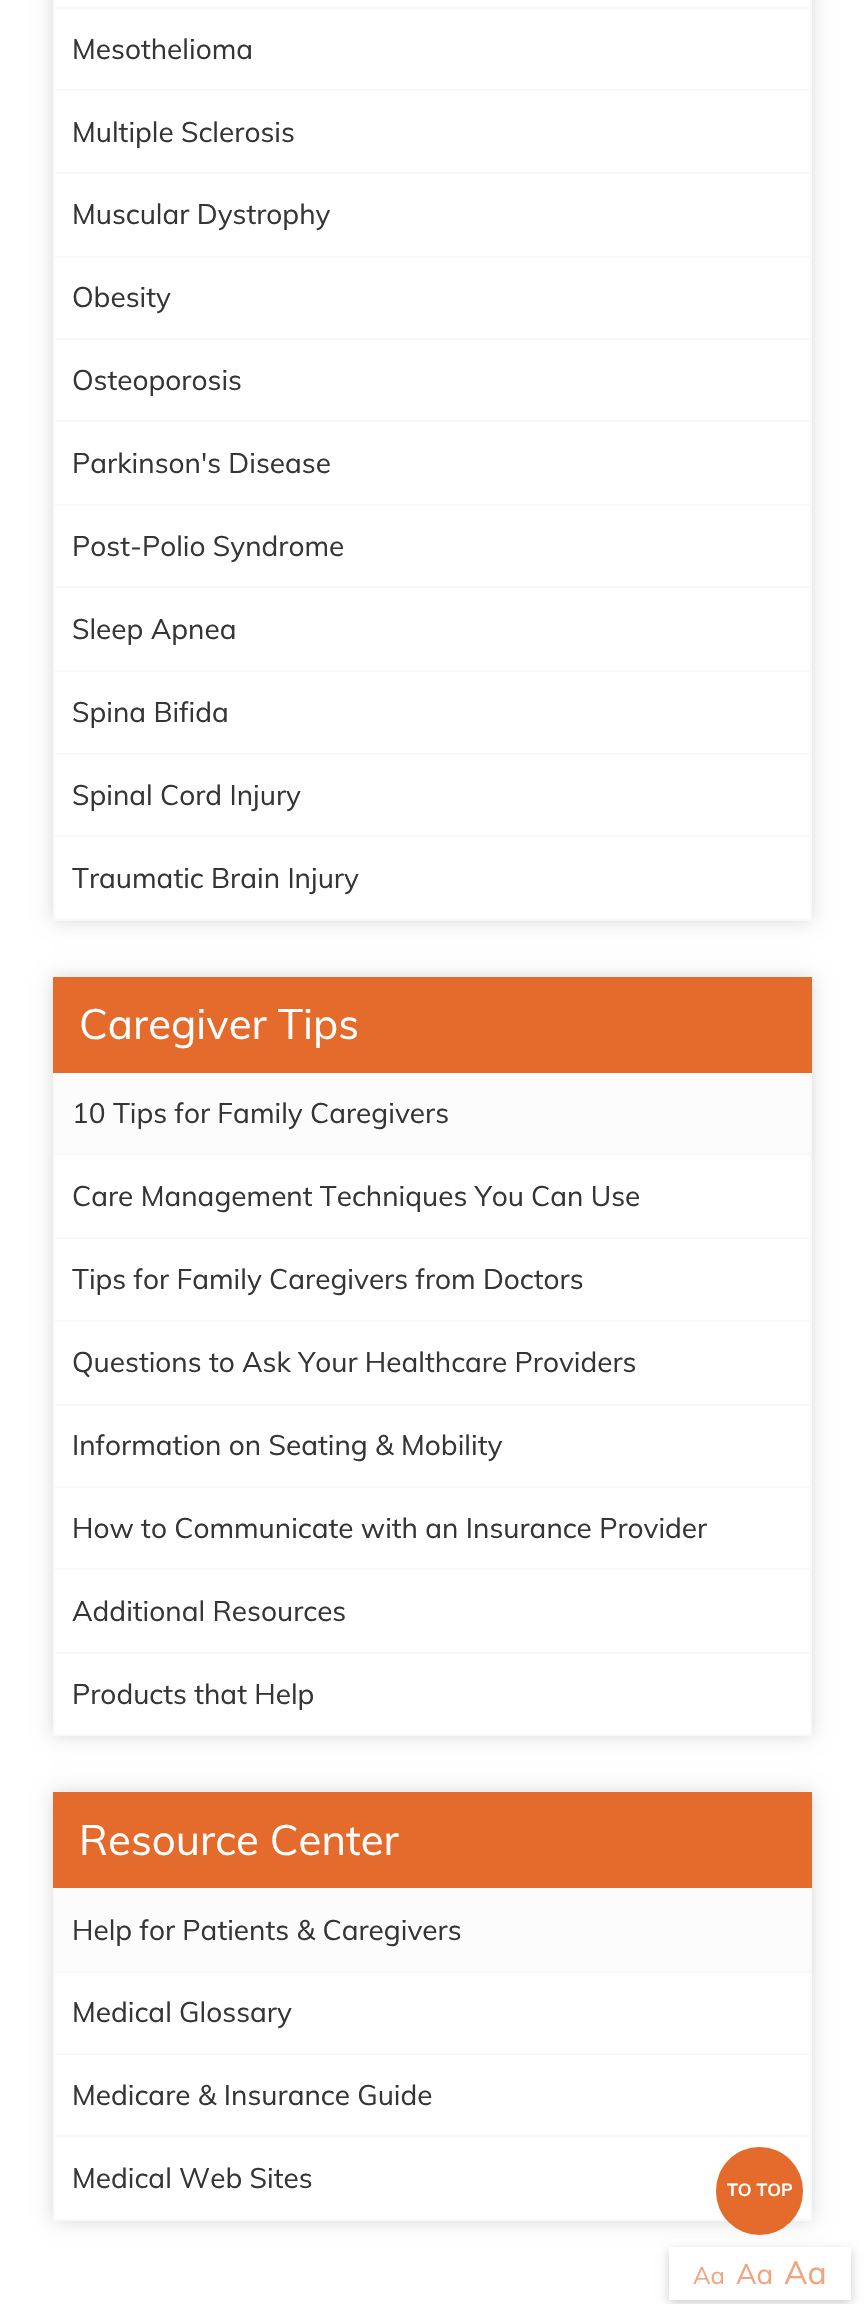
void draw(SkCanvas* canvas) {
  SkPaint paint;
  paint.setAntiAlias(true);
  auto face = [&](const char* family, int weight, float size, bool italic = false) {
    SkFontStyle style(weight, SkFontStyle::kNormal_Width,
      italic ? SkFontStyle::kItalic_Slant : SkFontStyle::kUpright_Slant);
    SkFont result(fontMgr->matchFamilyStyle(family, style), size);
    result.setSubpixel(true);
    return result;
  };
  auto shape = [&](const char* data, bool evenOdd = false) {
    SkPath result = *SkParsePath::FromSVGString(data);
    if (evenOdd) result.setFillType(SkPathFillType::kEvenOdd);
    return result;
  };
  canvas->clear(0xffffffff);
  paint.setColor(0xfffcfcfc);
  canvas->drawRect(SkRect::MakeXYWH(55, 1073, 755, 80), paint);
  paint.setColor(0x26000000);
  paint.setMaskFilter(SkMaskFilter::MakeBlur(kNormal_SkBlurStyle, 9));
  canvas->drawRect(SkRect::MakeXYWH(53, -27, 759, 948), paint);
  paint.setMaskFilter(nullptr);
  {
    const struct { float x, y, w, h; SkColor color; } items[] = {
      {55, 0, 755, 919, 0xffffffff},
      {810, 0, 2, 921, 0xfff9f9f9},
      {53, 919, 759, 2, 0xfff9f9f9},
      {53, 0, 2, 921, 0xfff9f9f9},
      {54, 7, 756, 2, 0xfff9f9f9},
      {54, 89, 756, 2, 0xfff9f9f9},
      {54, 172, 756, 2, 0xfff9f9f9},
      {54, 256, 756, 2, 0xfff9f9f9},
      {54, 338, 756, 2, 0xfff9f9f9},
      {54, 420, 756, 2, 0xfff9f9f9},
      {54, 504, 756, 2, 0xfff9f9f9},
      {54, 586, 756, 2, 0xfff9f9f9},
      {54, 670, 756, 2, 0xfff9f9f9},
      {54, 753, 756, 2, 0xfff9f9f9},
      {54, 835, 756, 2, 0xfff9f9f9},
    };
    for (auto [x, y, w, h, color] : items) {
      paint.setColor(color);
      canvas->drawRect(SkRect::MakeXYWH(x, y, w, h), paint);
    }
  }
  canvas->save();
  canvas->clipPath(shape("M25 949H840V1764H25ZM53 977H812V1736H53Z", true), true);
  paint.setColor(0x26000000);
  paint.setMaskFilter(SkMaskFilter::MakeBlur(kNormal_SkBlurStyle, 9));
  canvas->drawRect(SkRect::MakeXYWH(53, 977, 759, 759), paint);
  paint.setMaskFilter(nullptr);
  canvas->restore();
  {
    const struct { float x, y, w, h; SkColor color; } items[] = {
      {53, 977, 759, 96, 0xffe56b2c},
      {810, 1073, 2, 663, 0xfff9f9f9},
      {53, 1734, 759, 2, 0xfff9f9f9},
      {53, 1073, 2, 663, 0xfff9f9f9},
      {54, 1153, 756, 2, 0xfff9f9f9},
      {54, 1237, 756, 2, 0xfff9f9f9},
      {54, 1320, 756, 2, 0xfff9f9f9},
      {54, 1404, 756, 2, 0xfff9f9f9},
      {54, 1486, 756, 2, 0xfff9f9f9},
      {54, 1568, 756, 2, 0xfff9f9f9},
      {54, 1652, 756, 2, 0xfff9f9f9},
    };
    for (auto [x, y, w, h, color] : items) {
      paint.setColor(color);
      canvas->drawRect(SkRect::MakeXYWH(x, y, w, h), paint);
    }
  }
  paint.setColor(0x26000000);
  paint.setMaskFilter(SkMaskFilter::MakeBlur(kNormal_SkBlurStyle, 9));
  canvas->drawRect(SkRect::MakeXYWH(53, 1792, 759, 429), paint);
  paint.setMaskFilter(nullptr);
  {
    const struct { float x, y, w, h; SkColor color; } items[] = {
      {53, 1792, 759, 96, 0xffe56b2c},
      {55, 1973, 755, 246, 0xffffffff},
      {55, 1888, 755, 83, 0xfffcfcfc},
      {810, 1888, 2, 333, 0xfff9f9f9},
      {53, 2219, 759, 2, 0xfff9f9f9},
      {53, 1888, 2, 333, 0xfff9f9f9},
      {54, 1971, 756, 2, 0xfff9f9f9},
      {54, 2053, 756, 2, 0xfff9f9f9},
      {54, 2135, 756, 2, 0xfff9f9f9},
    };
    for (auto [x, y, w, h, color] : items) {
      paint.setColor(color);
      canvas->drawRect(SkRect::MakeXYWH(x, y, w, h), paint);
    }
  }
  paint.setColor(0xffe56b2c);
  canvas->drawRoundRect(SkRect::MakeXYWH(716, 2147, 87, 88), 43.5f, 43.5f, paint);
  paint.setColor(0x33000000);
  paint.setMaskFilter(SkMaskFilter::MakeBlur(kNormal_SkBlurStyle, 5));
  canvas->drawRect(SkRect::MakeXYWH(669, 2251, 182, 52), paint);
  paint.setMaskFilter(nullptr);
  paint.setColor(0xffffffff);
  canvas->drawRect(SkRect::MakeXYWH(669, 2247, 182, 53), paint);
  auto f0 = face("Muli", 400, 28);
  paint.setColor(0xff353535);
  {
    const struct { const char* s; float x, y; } items[] = {
      {"Mesothelioma", 72, 59},
      {"Multiple Sclerosis", 72, 142},
      {"Muscular Dystrophy", 72, 224},
      {"Obesity", 72, 307},
      {"Osteoporosis", 72, 390},
      {"Parkinson's Disease", 72, 473},
      {"Post-Polio Syndrome", 72, 556},
      {"Sleep Apnea", 72, 639},
      {"Spina Bifida", 72, 722},
      {"Spinal Cord Injury", 72, 805},
      {"Traumatic Brain Injury", 72, 888},
    };
    for (auto [s, x, y] : items) {
      canvas->drawString(s, x, y, f0, paint);
    }
  }
  auto f1 = face("Muli", 400, 42);
  paint.setColor(0xffffffff);
  canvas->drawString("Caregiver Tips", 79, 1039, f1, paint);
  paint.setColor(0xff353535);
  {
    const struct { const char* s; float x, y; } items[] = {
      {"10 Tips for Family Caregivers", 72, 1123},
      {"Care Management Techniques You Can Use", 72, 1206},
      {"Tips for Family Caregivers from Doctors", 72, 1289},
      {"Questions to Ask Your Healthcare Providers", 72, 1372},
      {"Information on Seating & Mobility", 72, 1455},
      {"How to Communicate with an Insurance Provider", 72, 1538},
      {"Additional Resources", 72, 1621},
      {"Products that Help", 72, 1704},
    };
    for (auto [s, x, y] : items) {
      canvas->drawString(s, x, y, f0, paint);
    }
  }
  paint.setColor(0xffffffff);
  canvas->drawString("Resource Center", 79, 1855, f1, paint);
  paint.setColor(0xff353535);
  {
    const struct { const char* s; float x, y; } items[] = {
      {"Help for Patients & Caregivers", 72, 1940},
      {"Medical Glossary", 72, 2022},
      {"Medicare & Insurance Guide", 72, 2105},
      {"Medical Web Sites", 72, 2188},
    };
    for (auto [s, x, y] : items) {
      canvas->drawString(s, x, y, f0, paint);
    }
  }
  auto f2 = face("Muli", 700, 17.5f);
  paint.setColor(0xffffffff);
  canvas->drawString("TO TOP", 727, 2196, f2, paint);
  auto f3 = face("Muli", 400, 24);
  paint.setColor(0xffefa680);
  canvas->drawString("Aa", 693, 2284, f3, paint);
  canvas->drawString("Aa", 736, 2284, f0, paint);
  auto f4 = face("Muli", 400, 32);
  canvas->drawString("Aa", 784, 2284, f4, paint);
}
